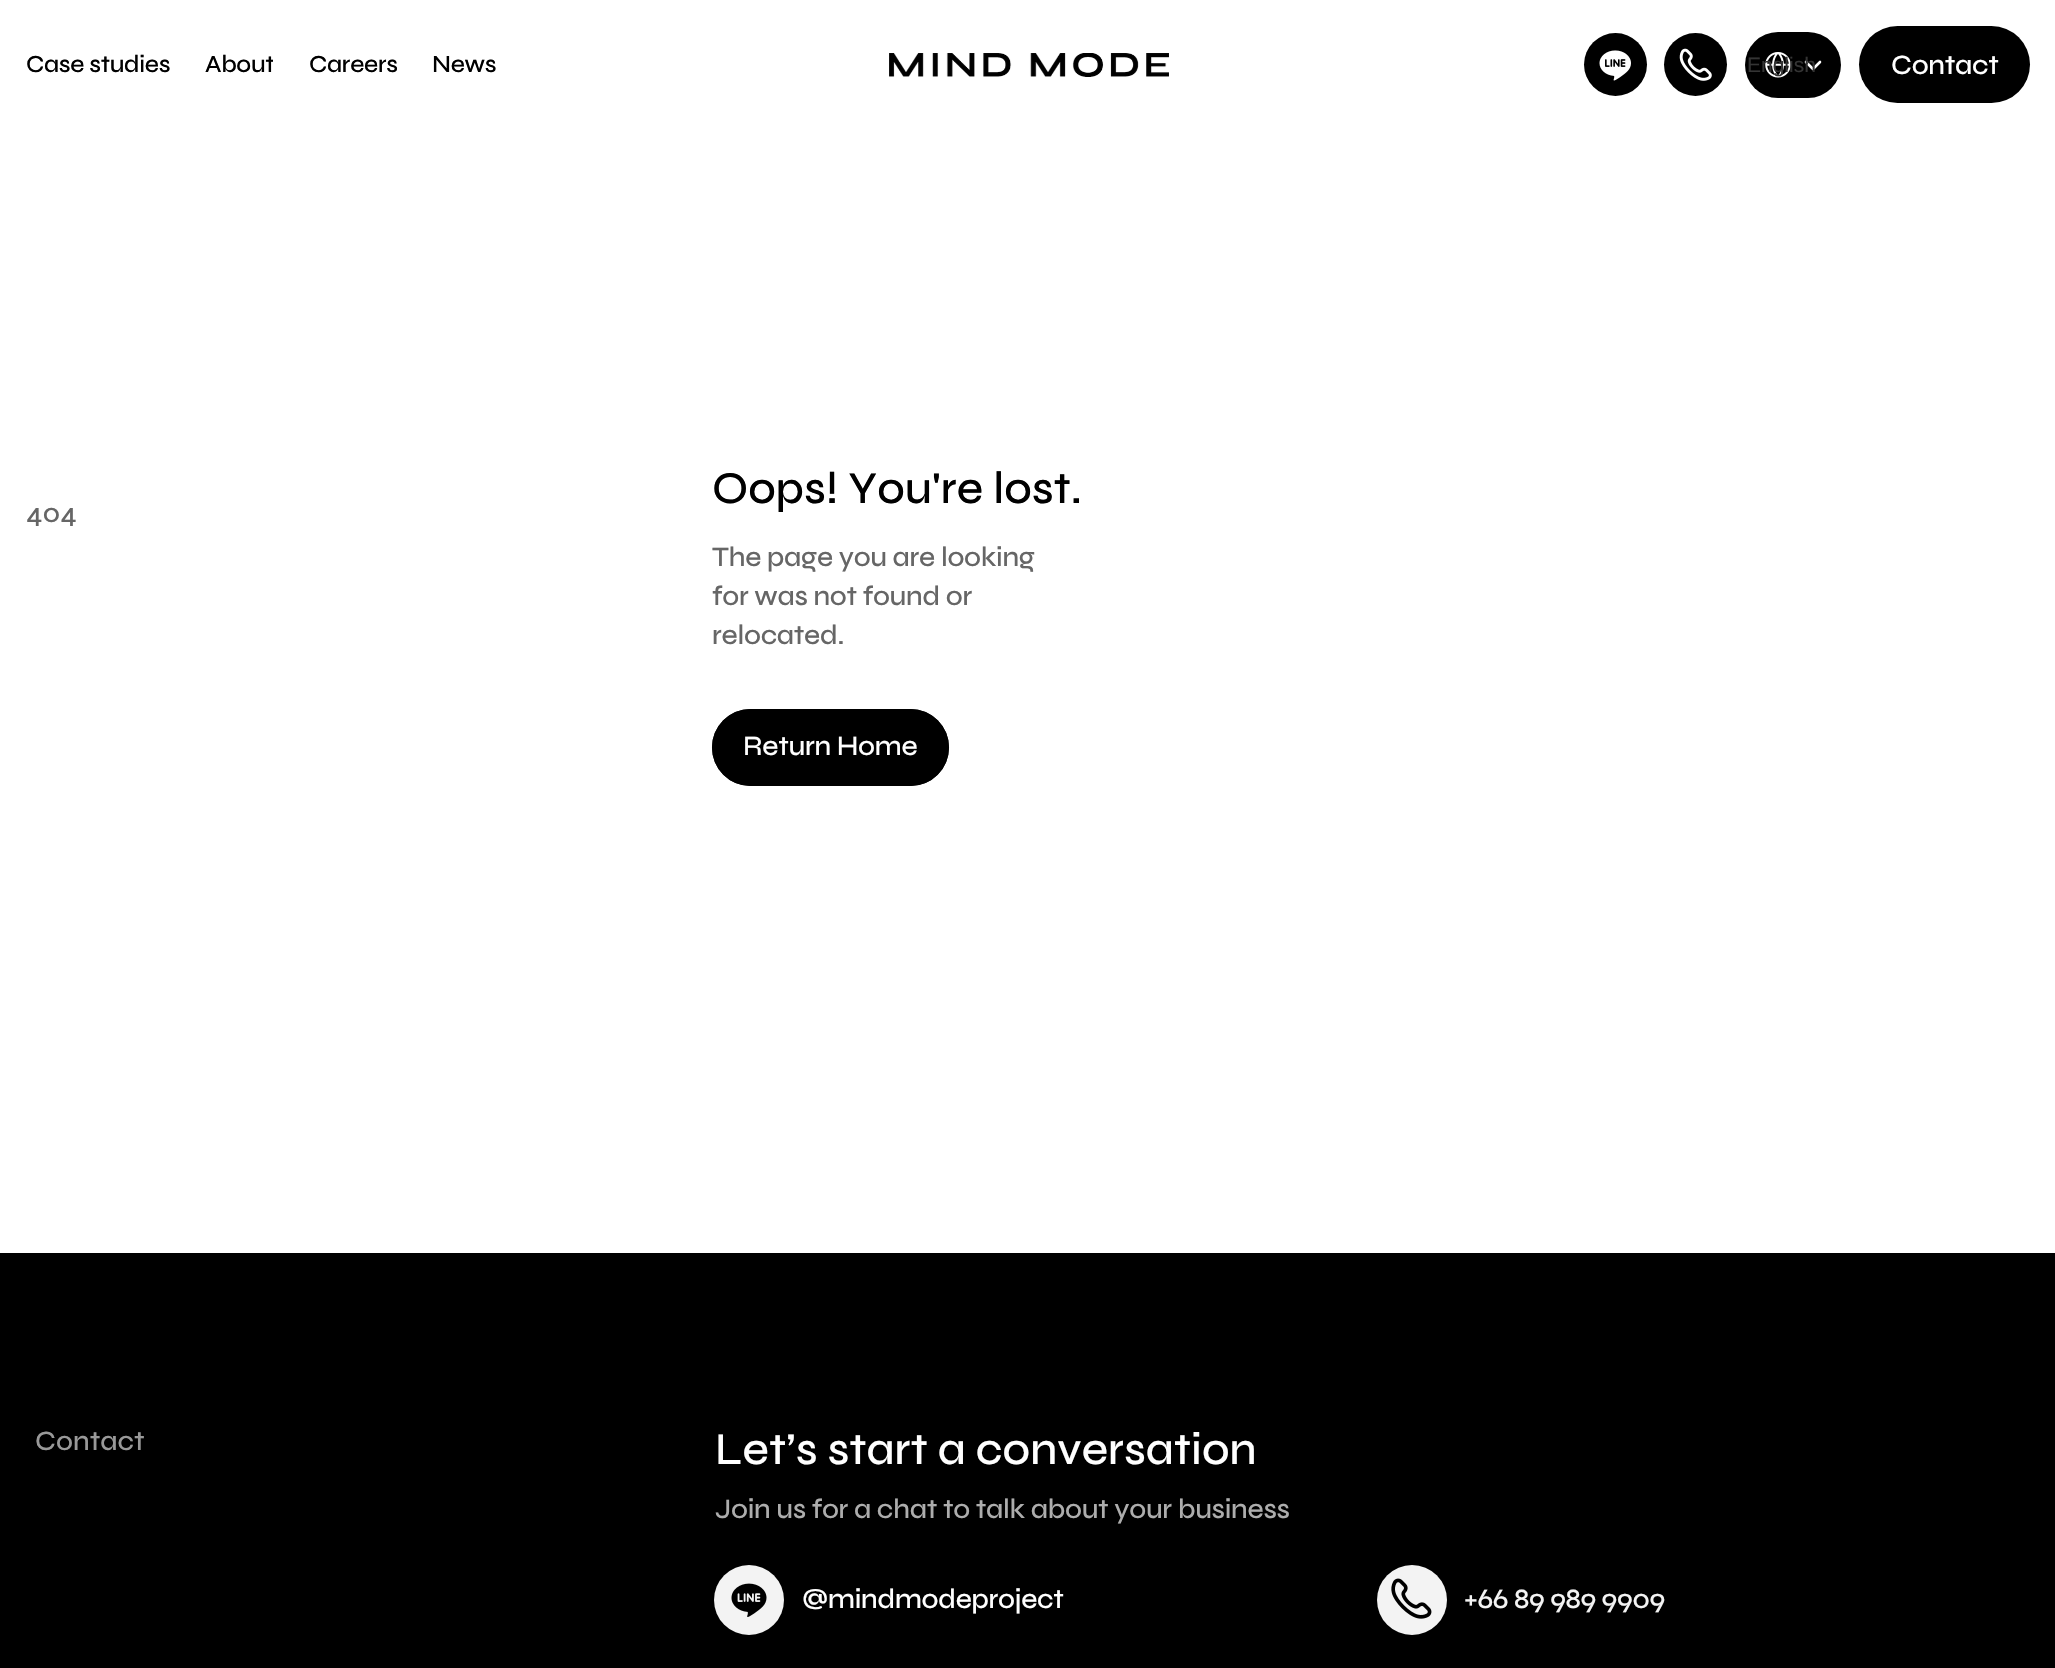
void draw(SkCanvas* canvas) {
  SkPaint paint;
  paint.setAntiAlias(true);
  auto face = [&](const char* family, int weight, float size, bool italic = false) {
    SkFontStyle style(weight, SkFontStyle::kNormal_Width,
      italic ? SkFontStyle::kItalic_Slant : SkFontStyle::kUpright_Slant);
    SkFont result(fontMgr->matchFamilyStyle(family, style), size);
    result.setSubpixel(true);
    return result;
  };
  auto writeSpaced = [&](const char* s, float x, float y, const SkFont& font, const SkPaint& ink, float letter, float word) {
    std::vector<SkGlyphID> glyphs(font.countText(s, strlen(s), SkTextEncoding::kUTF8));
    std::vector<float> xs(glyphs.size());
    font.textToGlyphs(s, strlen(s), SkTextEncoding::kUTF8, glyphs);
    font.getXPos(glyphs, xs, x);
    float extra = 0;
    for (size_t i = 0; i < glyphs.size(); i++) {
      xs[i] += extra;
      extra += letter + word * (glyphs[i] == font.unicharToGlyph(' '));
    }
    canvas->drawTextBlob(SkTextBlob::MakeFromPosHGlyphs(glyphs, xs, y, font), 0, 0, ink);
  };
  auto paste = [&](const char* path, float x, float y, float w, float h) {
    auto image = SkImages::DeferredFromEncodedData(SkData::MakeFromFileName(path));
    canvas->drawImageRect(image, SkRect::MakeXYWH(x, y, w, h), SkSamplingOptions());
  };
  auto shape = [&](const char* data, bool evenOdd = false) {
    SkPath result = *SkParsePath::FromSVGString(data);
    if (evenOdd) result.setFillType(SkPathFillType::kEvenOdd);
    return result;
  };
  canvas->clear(0xff000000);
  paint.setColor(0xffffffff);
  canvas->drawRect(SkRect::MakeXYWH(0, 0, 2055, 131), paint);
  paste("img/1.png", 889, 53, 280, 24);
  paint.setColor(0xff000000);
  canvas->drawCircle(1615.5f, 64.5f, 31.5f, paint);
  paste("img/2.png", 1599, 50, 32, 31);
  canvas->drawCircle(1695.5f, 64.5f, 31.5f, paint);
  paste("img/3.png", 1679, 48, 33, 33);
  canvas->drawRoundRect(SkRect::MakeXYWH(1745, 32, 96, 66), 33, 33, paint);
  paste("img/4.png", 1765, 52, 26, 26);
  paint.setStroke(true);
  paint.setStrokeWidth(2.6f);
  paint.setStrokeCap(SkPaint::kRound_Cap);
  paint.setStrokeJoin(SkPaint::kRound_Join);
  paint.setColor(0xffffffff);
  canvas->drawPath(shape("M1806 62L1813 69L1820 62"), paint);
  paint.setStroke(false);
  paint.setColor(0xff000000);
  canvas->drawRoundRect(SkRect::MakeXYWH(1859, 26, 171, 77), 38.5f, 38.5f, paint);
  {
    const SkColor colors[] = {0xff545454, 0xffffffff};
    const float stops[] = {0, 0.05f};
    const SkPoint ends[] = {{1028, 0}, {1028, 1253}};
    paint.setShader(SkGradientShader::MakeLinear(ends, colors, stops, 2, SkTileMode::kClamp));
    paint.setAlpha(255);
  }
  canvas->drawRect(SkRect::MakeXYWH(0, 131, 2055, 1122), paint);
  paint.setShader(nullptr);
  paint.setColor(0xff000000);
  canvas->drawRoundRect(SkRect::MakeXYWH(712, 709, 237, 77), 38.5f, 38.5f, paint);
  paint.setStroke(true);
  paint.setStrokeWidth(2);
  paint.setStrokeCap(SkPaint::kButt_Cap);
  paint.setStrokeJoin(SkPaint::kMiter_Join);
  canvas->drawRoundRect(SkRect::MakeXYWH(713, 710, 235, 75), 37.5f, 37.5f, paint);
  paint.setStroke(false);
  paint.setColor(0xfff3f3f3);
  canvas->drawCircle(749, 1600, 35, paint);
  paste("img/5.png", 731, 1583, 36, 34);
  canvas->drawCircle(1412, 1600, 35, paint);
  paste("img/6.png", 1391, 1578, 41, 41);
  auto f0 = face("Syne", 500, 24.5f);
  paint.setColor(0xff000000);
  writeSpaced("Case studies", 26, 72, f0, paint, -0.3f, 0);
  canvas->save();
  canvas->clipRect(SkRect::MakeXYWH(205, 46, 68, 38));
  writeSpaced("About", 205, 72, f0, paint, -0.3f, 0);
  canvas->restore();
  writeSpaced("Careers", 309, 72, f0, paint, -0.3f, 0);
  writeSpaced("News", 432, 72, f0, paint, -0.3f, 0);
  auto f1 = face("Liberation Sans", 400, 21);
  paint.setColor(0xff343434);
  canvas->drawString("English", 1747, 72, f1, paint);
  auto f2 = face("Syne", 500, 28);
  paint.setColor(0xffffffff);
  writeSpaced("Contact", 1891, 74, f2, paint, -0.3f, 0);
  paint.setColor(0xff666666);
  canvas->drawString("404", 26, 522, f2, paint);
  auto f3 = face("Syne", 500, 45.5f);
  paint.setColor(0xff000000);
  canvas->drawString("Oops! You're lost.", 712, 503, f3, paint);
  paint.setColor(0xff666666);
  {
    const struct { const char* s; float x, y; } items[] = {
      {"The page you are looking", 712, 566},
      {"for was not found or", 712, 605},
      {"relocated.", 712, 644},
    };
    for (auto [s, x, y] : items) {
      writeSpaced(s, x, y, f2, paint, -0.3f, 0);
    }
  }
  paint.setColor(0xffffffff);
  writeSpaced("Return Home", 743, 755, f2, paint, -0.3f, 0);
  paint.setColor(0xff999999);
  canvas->drawString("Contact", 35, 1450, f2, paint);
  paint.setColor(0xffffffff);
  canvas->drawString("Let’s start a conversation", 715, 1464, f3, paint);
  paint.setColor(0xffadadad);
  writeSpaced("Join us for a chat to talk about your business", 715, 1518, f2, paint, -0.3f, 0);
  paint.setColor(0xffffffff);
  writeSpaced("@mindmodeproject", 802, 1608, f2, paint, -0.3f, 0);
  paint.setColor(0xfff3f3f3);
  writeSpaced("+66 89 989 9909", 1464, 1608, f2, paint, -0.3f, 0);
}
